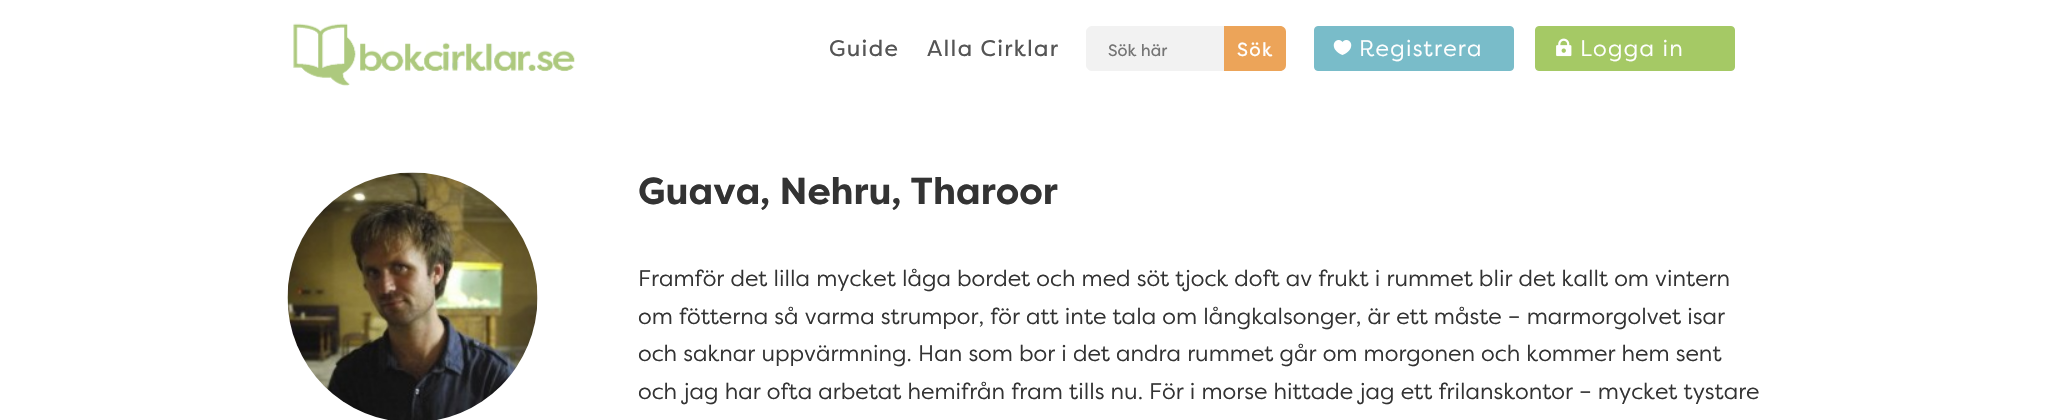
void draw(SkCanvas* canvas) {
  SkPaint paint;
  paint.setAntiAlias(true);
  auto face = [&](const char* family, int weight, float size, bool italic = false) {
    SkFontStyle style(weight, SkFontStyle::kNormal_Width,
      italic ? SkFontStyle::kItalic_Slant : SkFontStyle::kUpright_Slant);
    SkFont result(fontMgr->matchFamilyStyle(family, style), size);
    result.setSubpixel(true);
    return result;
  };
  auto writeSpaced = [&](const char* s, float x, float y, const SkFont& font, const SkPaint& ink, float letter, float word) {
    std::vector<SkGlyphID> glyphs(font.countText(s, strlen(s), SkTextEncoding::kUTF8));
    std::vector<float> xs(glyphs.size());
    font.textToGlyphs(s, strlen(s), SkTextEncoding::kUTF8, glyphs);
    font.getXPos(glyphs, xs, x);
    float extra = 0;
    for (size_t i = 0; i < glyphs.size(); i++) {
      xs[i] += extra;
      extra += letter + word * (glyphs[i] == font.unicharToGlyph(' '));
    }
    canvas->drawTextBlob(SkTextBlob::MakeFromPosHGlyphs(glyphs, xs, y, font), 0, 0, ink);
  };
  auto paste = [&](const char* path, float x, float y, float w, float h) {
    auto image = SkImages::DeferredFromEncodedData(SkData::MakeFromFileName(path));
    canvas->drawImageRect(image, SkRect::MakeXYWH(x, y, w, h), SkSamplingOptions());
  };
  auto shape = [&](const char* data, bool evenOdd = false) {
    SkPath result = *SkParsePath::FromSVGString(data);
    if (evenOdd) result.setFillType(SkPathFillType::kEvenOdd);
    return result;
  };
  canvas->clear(0xffffffff);
  paste("img/1.png", 293, 23, 282, 63);
  paint.setColor(0xfff2f2f2);
  canvas->drawRoundRect(SkRect::MakeXYWH(1086.5f, 26.5f, 149, 44), 5.5f, 5.5f, paint);
  paint.setStroke(true);
  paint.setStrokeWidth(1);
  canvas->drawRoundRect(SkRect::MakeXYWH(1086.5f, 26.5f, 149, 44), 5.5f, 5.5f, paint);
  paint.setStroke(false);
  paint.setColor(0xffeca459);
  canvas->drawPath(shape("M1224 26H1280C1283.5 26 1286 28.5 1286 32V65C1286 68.5 1283.5 71 1280 71H1224Z"), paint);
  paint.setColor(0xff79bcc9);
  canvas->drawRoundRect(SkRect::MakeXYWH(1314.5f, 26.5f, 199, 44), 3.5f, 3.5f, paint);
  paint.setStroke(true);
  canvas->drawRoundRect(SkRect::MakeXYWH(1314.5f, 26.5f, 199, 44), 3.5f, 3.5f, paint);
  paste("img/2.png", 1333, 40, 19, 15);
  paint.setStroke(false);
  paint.setColor(0xffa5c965);
  canvas->drawRoundRect(SkRect::MakeXYWH(1535.5f, 26.5f, 199, 44), 3.5f, 3.5f, paint);
  paint.setStroke(true);
  canvas->drawRoundRect(SkRect::MakeXYWH(1535.5f, 26.5f, 199, 44), 3.5f, 3.5f, paint);
  paste("img/3.png", 1556, 38, 16, 19);
  paste("img/4.png", 287, 172, 251, 248);
  auto f0 = face("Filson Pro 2", 400, 22.5f);
  paint.setStroke(false);
  paint.setColor(0xff555555);
  writeSpaced("Guide", 829, 56, f0, paint, 1.25f, 0);
  writeSpaced("Alla Cirklar", 927, 56, f0, paint, 1.25f, 0);
  auto f1 = face("Filson Pro 2", 400, 16.5f);
  paint.setColor(0xff757575);
  canvas->drawString("Sök här", 1108, 56, f1, paint);
  auto f2 = face("Filson Pro 2", 400, 19);
  paint.setColor(0xffffffff);
  writeSpaced("Sök", 1237, 56, f2, paint, 1.25f, 0);
  auto f3 = face("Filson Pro", 400, 22.5f);
  writeSpaced("Registrera", 1359, 56, f3, paint, 1.25f, 0);
  writeSpaced("Logga in", 1580, 56, f3, paint, 1.25f, 0);
  auto f4 = face("Filson Pro", 700, 37.5f);
  paint.setColor(0xff333333);
  canvas->drawString("Guava, Nehru, Tharoor", 638, 204, f4, paint);
  {
    const struct { const char* s; float x, y; } items[] = {
      {"Framför det lilla mycket låga bordet och med söt tjock doft av frukt i rummet blir det kallt om vintern", 638, 286},
      {"om fötterna så varma strumpor, för att inte tala om långkalsonger, är ett måste – marmorgolvet isar", 638, 324},
      {"och saknar uppvärmning. Han som bor i det andra rummet går om morgonen och kommer hem sent", 638, 361},
      {"och jag har ofta arbetat hemifrån fram tills nu. För i morse hittade jag ett frilanskontor – mycket tystare", 638, 399},
    };
    for (auto [s, x, y] : items) {
      canvas->drawString(s, x, y, f3, paint);
    }
  }
}
